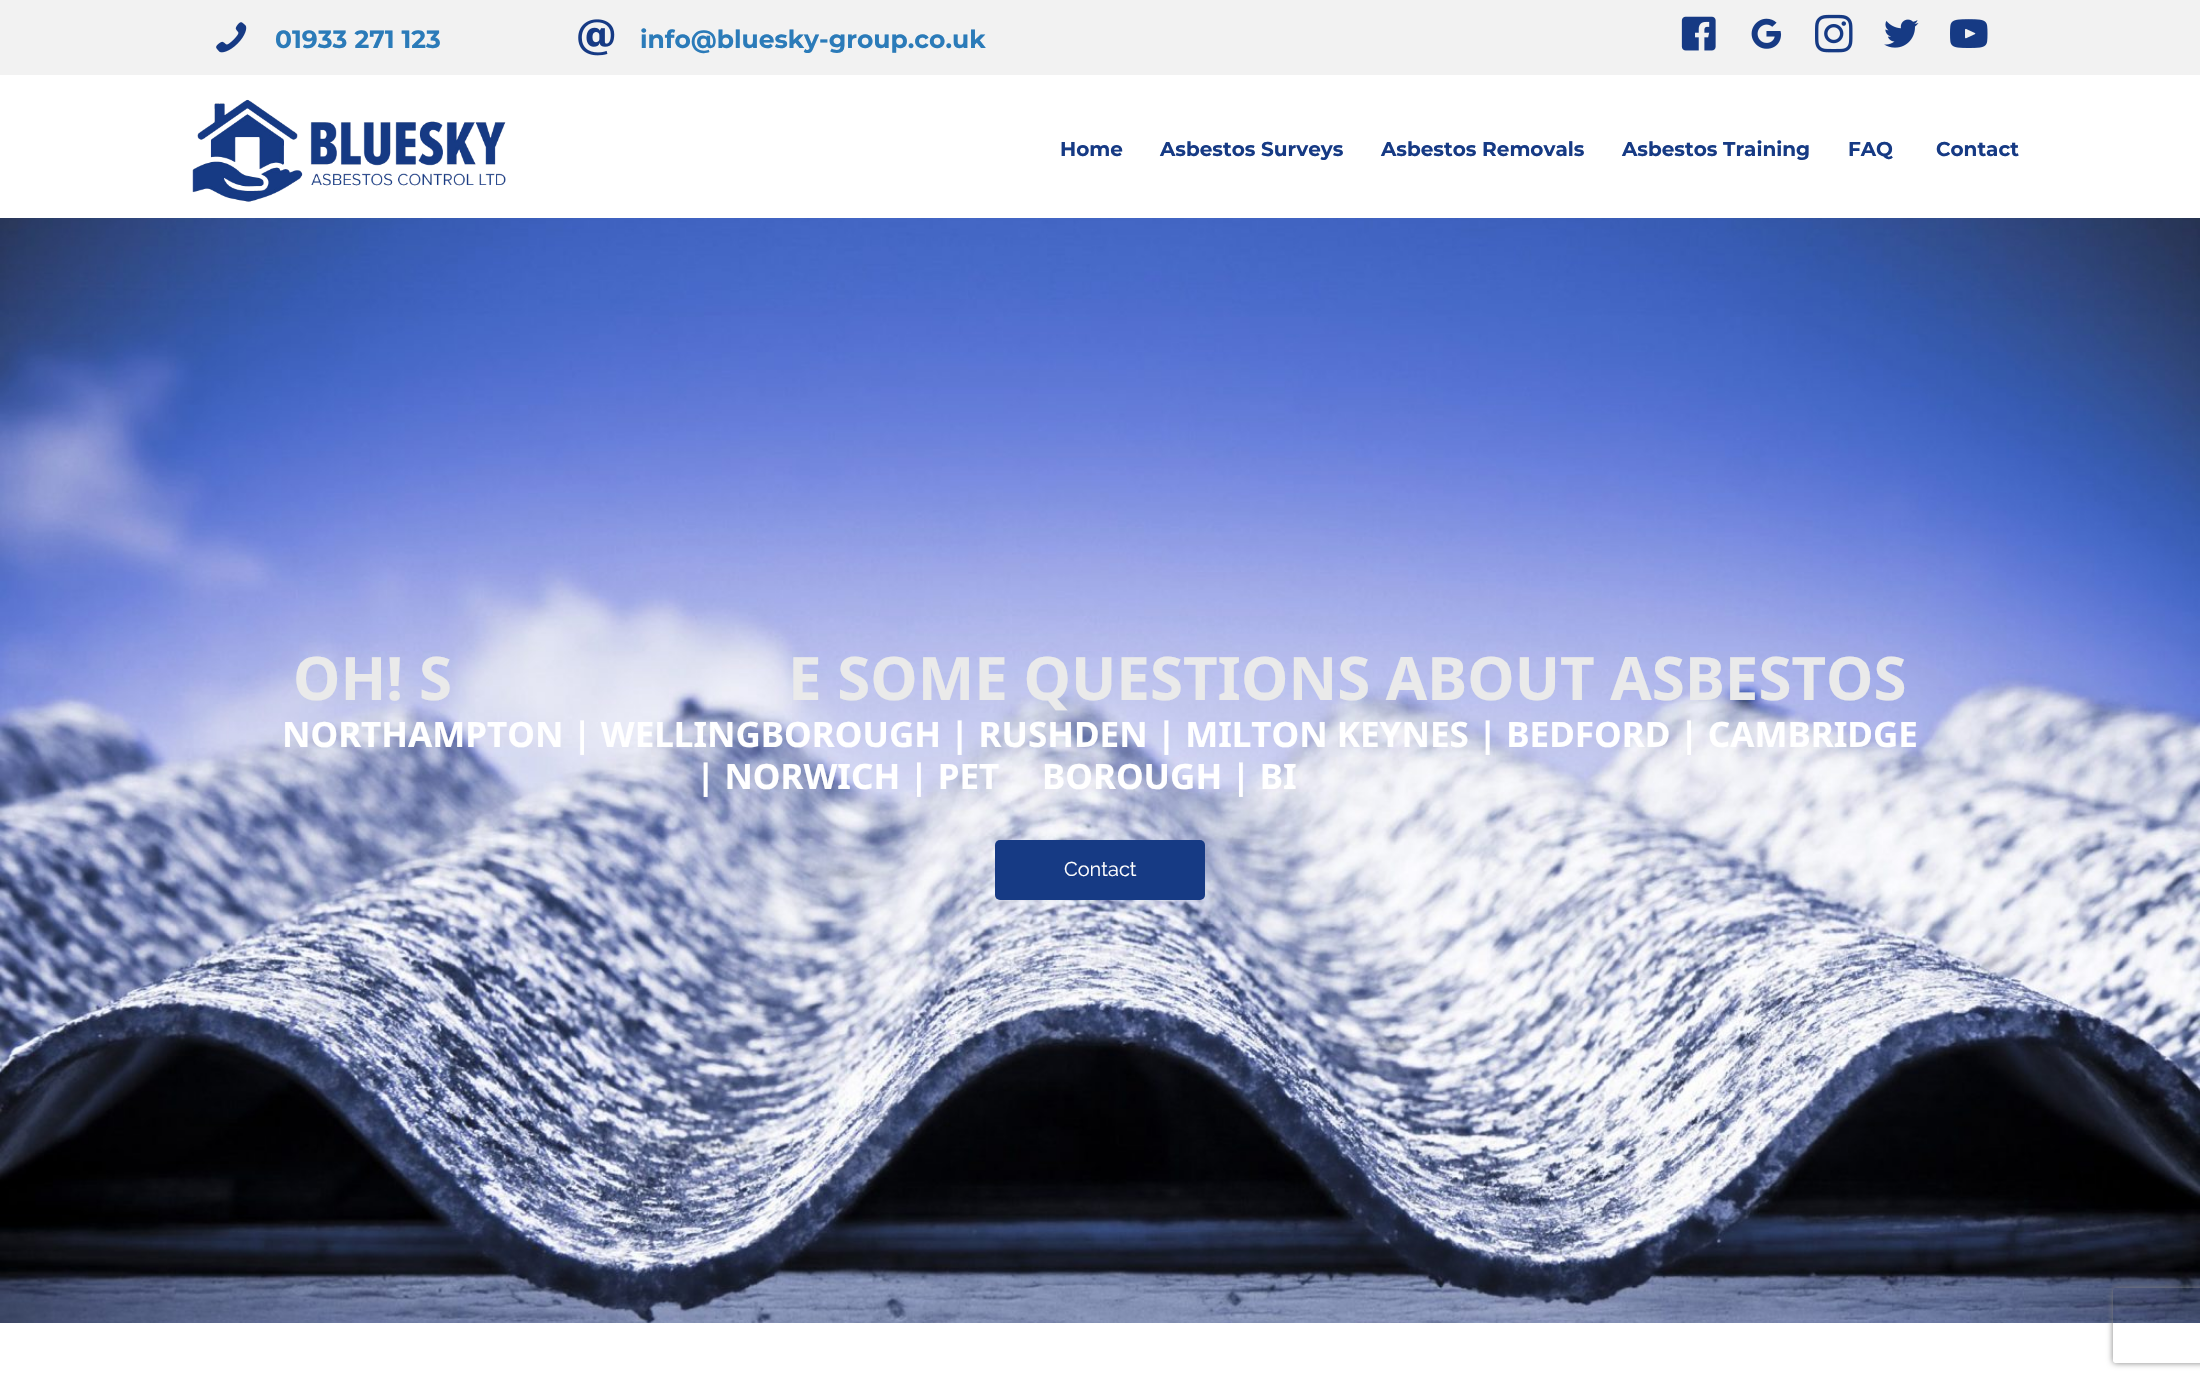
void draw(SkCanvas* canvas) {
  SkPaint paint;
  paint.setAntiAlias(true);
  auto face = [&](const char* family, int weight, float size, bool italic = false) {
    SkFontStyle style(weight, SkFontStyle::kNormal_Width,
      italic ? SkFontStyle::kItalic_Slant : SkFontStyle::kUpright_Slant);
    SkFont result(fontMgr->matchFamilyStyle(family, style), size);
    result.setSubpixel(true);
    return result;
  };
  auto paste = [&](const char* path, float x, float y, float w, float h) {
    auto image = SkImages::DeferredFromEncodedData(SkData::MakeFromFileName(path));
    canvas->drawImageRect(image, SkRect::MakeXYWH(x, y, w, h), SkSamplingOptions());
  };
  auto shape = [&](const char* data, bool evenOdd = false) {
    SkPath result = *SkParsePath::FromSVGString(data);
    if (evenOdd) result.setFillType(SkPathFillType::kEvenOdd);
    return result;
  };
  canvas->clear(0xfff2f2f2);
  paste("img/1.png", 216, 22, 31, 31);
  paste("img/2.png", 578, 19, 37, 37);
  paste("img/3.png", 1681, 16, 35, 35);
  paste("img/4.png", 1751, 18, 31, 31);
  paste("img/5.png", 1815, 14, 38, 39);
  paste("img/6.png", 1884, 19, 35, 29);
  paste("img/7.png", 1950, 19, 38, 29);
  paint.setColor(0xffffffff);
  canvas->drawRect(SkRect::MakeXYWH(0, 75, 2200, 143), paint);
  paste("img/8.png", 192, 99, 314, 103);
  canvas->drawRect(SkRect::MakeXYWH(0, 1323, 2200, 56), paint);
  paste("img/9.png", 0, 218, 2200, 1105);
  paint.setColor(0xff163a84);
  canvas->drawRoundRect(SkRect::MakeXYWH(995, 840, 210, 60), 5, 5, paint);
  canvas->save();
  canvas->clipPath(shape("M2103 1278H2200V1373H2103ZM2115.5 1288H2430.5C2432 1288 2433 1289 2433 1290.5V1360.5C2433 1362 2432 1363 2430.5 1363H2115.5C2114 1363 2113 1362 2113 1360.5V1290.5C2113 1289 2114 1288 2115.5 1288Z", true), true);
  paint.setColor(0xff808080);
  paint.setMaskFilter(SkMaskFilter::MakeBlur(kNormal_SkBlurStyle, 3));
  canvas->drawRoundRect(SkRect::MakeXYWH(2113, 1288, 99, 75), 2.5f, 2.5f, paint);
  paint.setMaskFilter(nullptr);
  canvas->restore();
  auto f0 = face("Montserrat", 100, 25);
  paint.setColor(0xff2b7bb9);
  canvas->drawString("01933 271 123", 275, 48, f0, paint);
  canvas->drawString("info@bluesky-group.co.uk", 640, 48, f0, paint);
  auto f1 = face("Montserrat", 100, 20);
  paint.setColor(0xff163a84);
  {
    const struct { const char* s; float x, y; } items[] = {
      {"Home", 1060, 156},
      {"Asbestos Surveys", 1160, 156},
      {"Asbestos Removals", 1381, 156},
      {"Asbestos Training", 1622, 156},
      {"FAQ", 1848, 156},
      {"Contact", 1936, 156},
    };
    for (auto [s, x, y] : items) {
      canvas->drawString(s, x, y, f1, paint);
    }
  }
  auto f2 = face("Noto Sans", 700, 60);
  paint.setColor(0xffeaeaea);
  canvas->drawString("OH! S", 293, 700, f2, paint);
  canvas->drawString("E SOME QUESTIONS ABOUT ASBESTOS", 788, 700, f2, paint);
  auto f3 = face("Noto Sans", 700, 35);
  paint.setColor(0xffffffff);
  {
    const struct { const char* s; float x, y; } items[] = {
      {"NORTHAMPTON | WELLINGBOROUGH | RUSHDEN | MILTON KEYNES | BEDFORD | CAMBRIDGE", 282, 747},
      {"| NORWICH | PET", 696, 789},
      {"BOROUGH | BI", 1042, 789},
    };
    for (auto [s, x, y] : items) {
      canvas->drawString(s, x, y, f3, paint);
    }
  }
  auto f4 = face("Raleway", 400, 20);
  canvas->drawString("Contact", 1064, 876, f4, paint);
}
